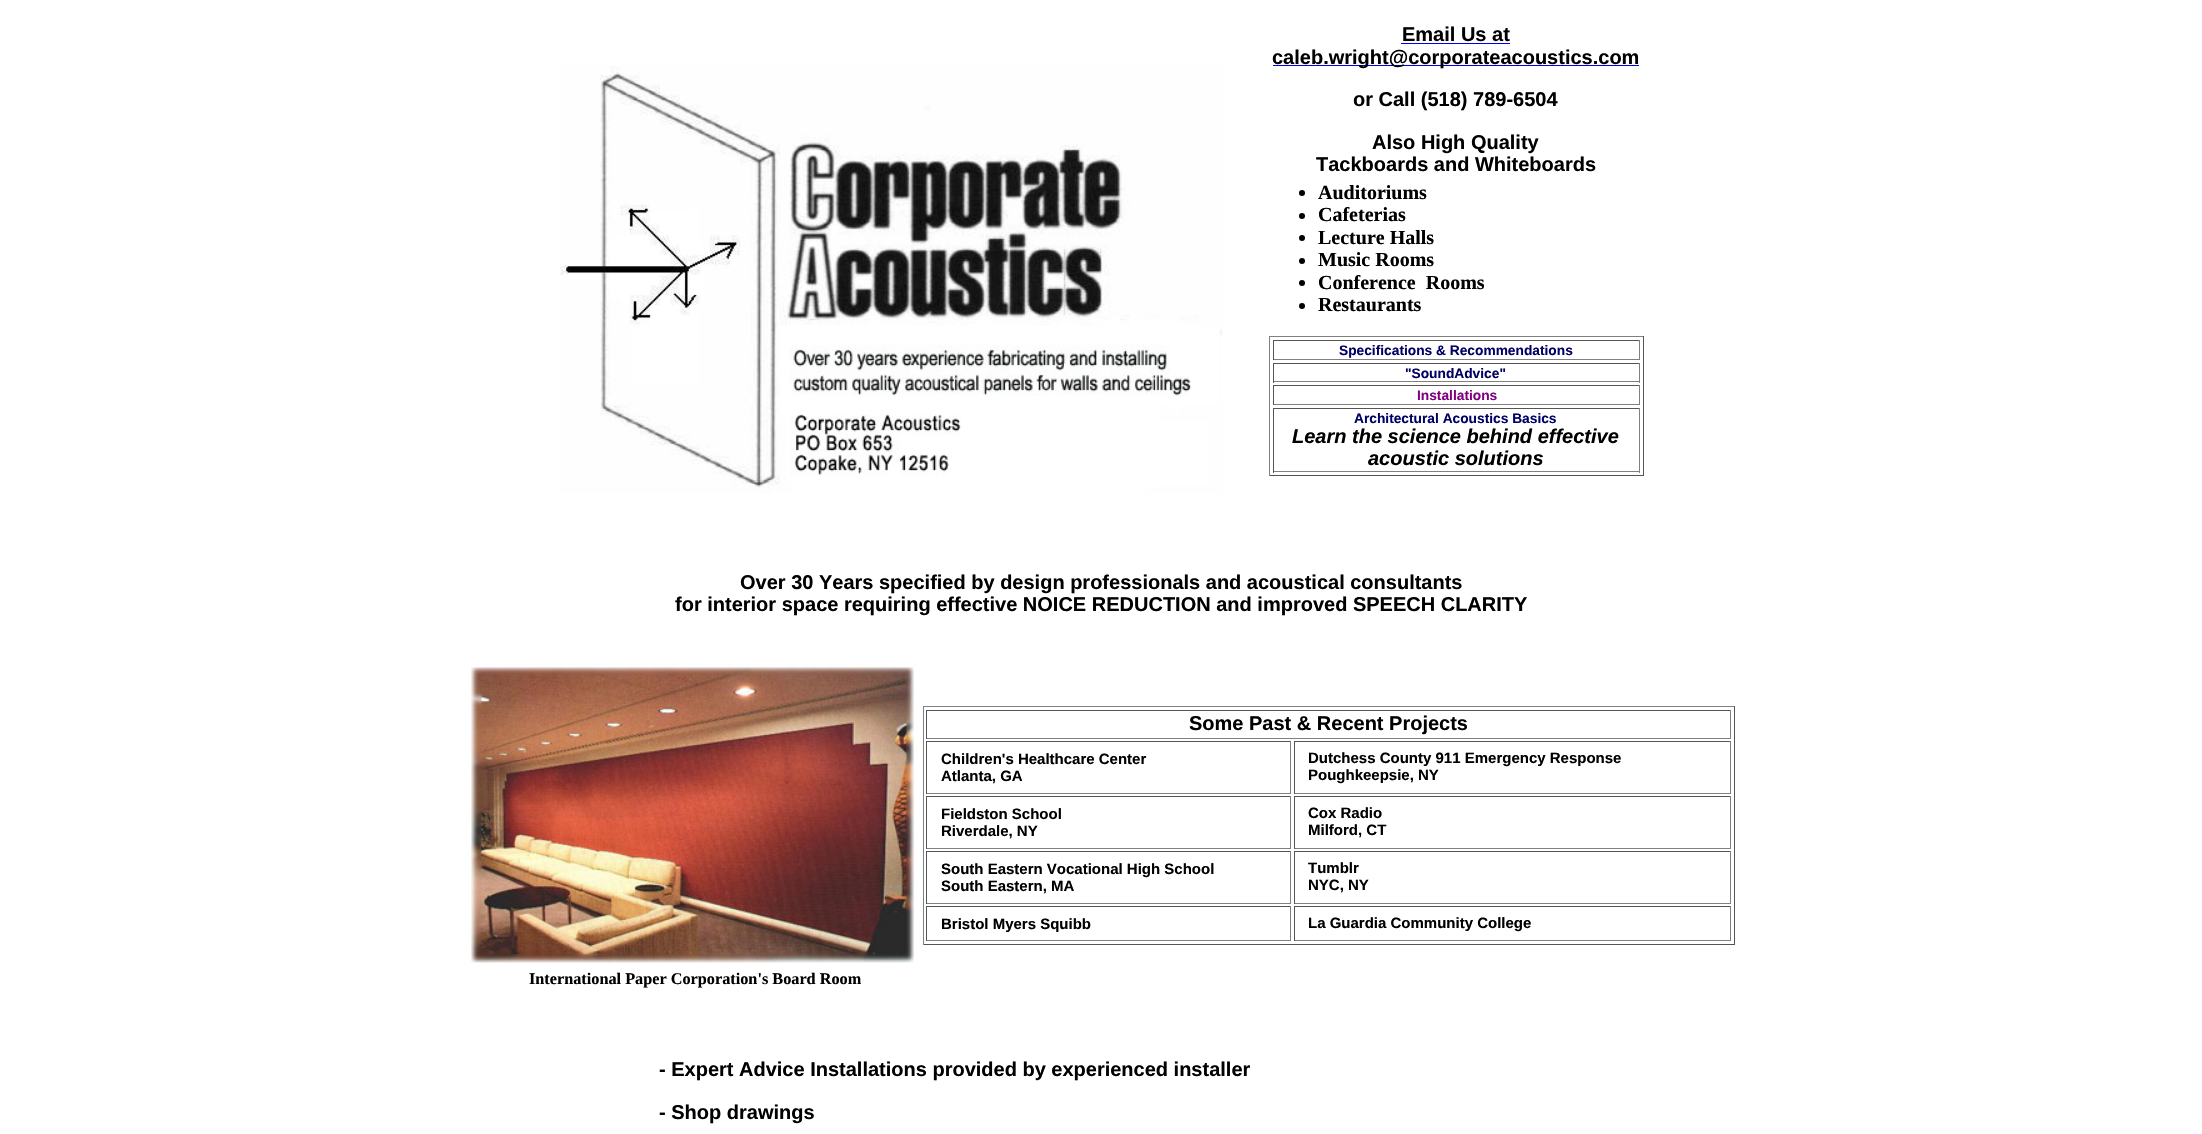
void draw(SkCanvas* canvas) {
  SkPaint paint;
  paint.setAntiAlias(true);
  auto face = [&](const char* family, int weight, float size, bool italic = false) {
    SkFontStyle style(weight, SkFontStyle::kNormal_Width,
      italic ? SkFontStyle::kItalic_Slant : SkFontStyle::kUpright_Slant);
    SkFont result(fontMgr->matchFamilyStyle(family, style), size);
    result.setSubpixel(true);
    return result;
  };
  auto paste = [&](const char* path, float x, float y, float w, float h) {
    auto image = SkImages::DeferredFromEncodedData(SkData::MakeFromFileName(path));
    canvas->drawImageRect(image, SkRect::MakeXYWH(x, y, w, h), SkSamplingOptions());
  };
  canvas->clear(0xffffffff);
  paste("img/1.png", 560, 65, 663, 428);
  paint.setColor(0xff0000ee);
  canvas->drawRect(SkRect::MakeXYWH(1401, 43, 109, 1), paint);
  canvas->drawRect(SkRect::MakeXYWH(1273, 65, 366, 1), paint);
  paint.setColor(0xff000000);
  canvas->drawCircle(1302, 193, 3, paint);
  canvas->drawCircle(1302, 216, 3, paint);
  canvas->drawCircle(1302, 238, 3, paint);
  canvas->drawCircle(1302, 261, 3, paint);
  canvas->drawCircle(1302, 283, 3, paint);
  canvas->drawCircle(1302, 306, 3, paint);
  {
    const struct { float x, y, w, h; SkColor color; } items[] = {
      {1269, 336, 375, 1, 0xff808080},
      {1643, 336, 1, 140, 0xff555555},
      {1269, 475, 375, 1, 0xff555555},
      {1269, 336, 1, 140, 0xff808080},
      {1273, 340, 367, 1, 0xff555555},
      {1639, 340, 1, 20, 0xff808080},
      {1273, 359, 367, 1, 0xff808080},
      {1273, 340, 1, 20, 0xff555555},
      {1273, 363, 367, 1, 0xff555555},
      {1639, 363, 1, 20, 0xff808080},
      {1273, 381, 367, 1, 0xff808080},
      {1273, 363, 1, 20, 0xff555555},
      {1273, 385, 367, 1, 0xff555555},
      {1639, 385, 1, 20, 0xff808080},
      {1273, 404, 367, 1, 0xff808080},
      {1273, 385, 1, 20, 0xff555555},
      {1273, 408, 367, 1, 0xff555555},
      {1639, 408, 1, 65, 0xff808080},
      {1273, 471, 367, 1, 0xff808080},
      {1273, 408, 1, 65, 0xff555555},
      {923, 706, 812, 1, 0xff808080},
      {1734, 706, 1, 239, 0xff555555},
      {923, 944, 812, 1, 0xff555555},
      {923, 706, 1, 239, 0xff808080},
      {926, 710, 805, 1, 0xff555555},
      {1730, 710, 1, 29, 0xff808080},
      {926, 738, 805, 1, 0xff808080},
      {926, 710, 1, 29, 0xff555555},
      {926, 741, 365, 1, 0xff555555},
      {1290, 741, 1, 53, 0xff808080},
      {926, 793, 365, 1, 0xff808080},
      {926, 741, 1, 53, 0xff555555},
      {1294, 741, 437, 1, 0xff555555},
      {1730, 741, 1, 53, 0xff808080},
      {1294, 793, 437, 1, 0xff808080},
      {1294, 741, 1, 53, 0xff555555},
      {926, 796, 365, 1, 0xff555555},
      {1290, 796, 1, 53, 0xff808080},
      {926, 848, 365, 1, 0xff808080},
      {926, 796, 1, 53, 0xff555555},
      {1294, 796, 437, 1, 0xff555555},
      {1730, 796, 1, 53, 0xff808080},
      {1294, 848, 437, 1, 0xff808080},
      {1294, 796, 1, 53, 0xff555555},
      {926, 851, 365, 1, 0xff555555},
      {1290, 851, 1, 53, 0xff808080},
      {926, 903, 365, 1, 0xff808080},
      {926, 851, 1, 53, 0xff555555},
      {1294, 851, 437, 1, 0xff555555},
      {1730, 851, 1, 53, 0xff808080},
      {1294, 903, 437, 1, 0xff808080},
      {1294, 851, 1, 53, 0xff555555},
      {926, 906, 365, 1, 0xff555555},
      {1290, 906, 1, 35, 0xff808080},
      {926, 940, 365, 1, 0xff808080},
      {926, 906, 1, 35, 0xff555555},
      {1294, 906, 437, 1, 0xff555555},
      {1730, 906, 1, 35, 0xff808080},
      {1294, 940, 437, 1, 0xff808080},
      {1294, 906, 1, 35, 0xff555555},
    };
    for (auto [x, y, w, h, color] : items) {
      paint.setColor(color);
      canvas->drawRect(SkRect::MakeXYWH(x, y, w, h), paint);
    }
  }
  paste("img/2.png", 468, 664, 449, 299);
  auto f0 = face("Liberation Sans", 700, 20);
  paint.setColor(0xff000000);
  {
    const struct { const char* s; float x, y; } items[] = {
      {"Email Us at", 1402, 41},
      {"caleb.wright@corporateacoustics.com", 1272, 64},
      {"or Call (518) 789-6504", 1353, 106},
      {"Also High Quality", 1372, 149},
      {"Tackboards and Whiteboards", 1316, 171},
    };
    for (auto [s, x, y] : items) {
      canvas->drawString(s, x, y, f0, paint);
    }
  }
  auto f1 = face("Liberation Serif", 700, 20);
  {
    const struct { const char* s; float x, y; } items[] = {
      {"Auditoriums", 1318, 199},
      {"Cafeterias", 1318, 221},
      {"Lecture Halls", 1318, 244},
      {"Music Rooms", 1318, 266},
      {"Conference  Rooms", 1318, 289},
      {"Restaurants", 1318, 311},
    };
    for (auto [s, x, y] : items) {
      canvas->drawString(s, x, y, f1, paint);
    }
  }
  auto f2 = face("Liberation Sans", 700, 13.75f);
  paint.setColor(0xff000066);
  canvas->drawString("Specifications & Recommendations", 1339, 355, f2, paint);
  canvas->drawString("\"SoundAdvice\"", 1405, 378, f2, paint);
  paint.setColor(0xff800080);
  canvas->drawString("Installations", 1417, 400, f2, paint);
  paint.setColor(0xff000066);
  canvas->drawString("Architectural Acoustics Basics", 1354, 423, f2, paint);
  auto f3 = face("Liberation Sans", 700, 20, true);
  paint.setColor(0xff000000);
  canvas->drawString("Learn the science behind effective", 1292, 443, f3, paint);
  canvas->drawString("acoustic solutions", 1368, 465, f3, paint);
  {
    const struct { const char* s; float x, y; } items[] = {
      {"Over 30 Years specified by design professionals and acoustical consultants", 740, 589},
      {"for interior space requiring effective NOICE REDUCTION and improved SPEECH CLARITY", 675, 611},
      {"Some Past & Recent Projects", 1189, 730},
    };
    for (auto [s, x, y] : items) {
      canvas->drawString(s, x, y, f0, paint);
    }
  }
  auto f4 = face("Liberation Sans", 700, 15);
  {
    const struct { const char* s; float x, y; } items[] = {
      {"Children's Healthcare Center", 941, 764},
      {"Atlanta, GA", 941, 781},
      {"Dutchess County 911 Emergency Response", 1308, 763},
      {"Poughkeepsie, NY", 1308, 780},
      {"Fieldston School", 941, 819},
      {"Riverdale, NY", 941, 836},
      {"Cox Radio", 1308, 818},
      {"Milford, CT", 1308, 835},
      {"South Eastern Vocational High School", 941, 874},
      {"South Eastern, MA", 941, 891},
      {"Tumblr", 1308, 873},
      {"NYC, NY", 1308, 890},
      {"Bristol Myers Squibb", 941, 929},
      {"La Guardia Community College", 1308, 928},
    };
    for (auto [s, x, y] : items) {
      canvas->drawString(s, x, y, f4, paint);
    }
  }
  auto f5 = face("Liberation Serif", 700, 16.25f);
  canvas->drawString("International Paper Corporation's Board Room", 529, 984, f5, paint);
  canvas->drawString("- Expert Advice Installations provided by experienced installer", 659, 1076, f0, paint);
  canvas->drawString("- Shop drawings", 659, 1119, f0, paint);
}
